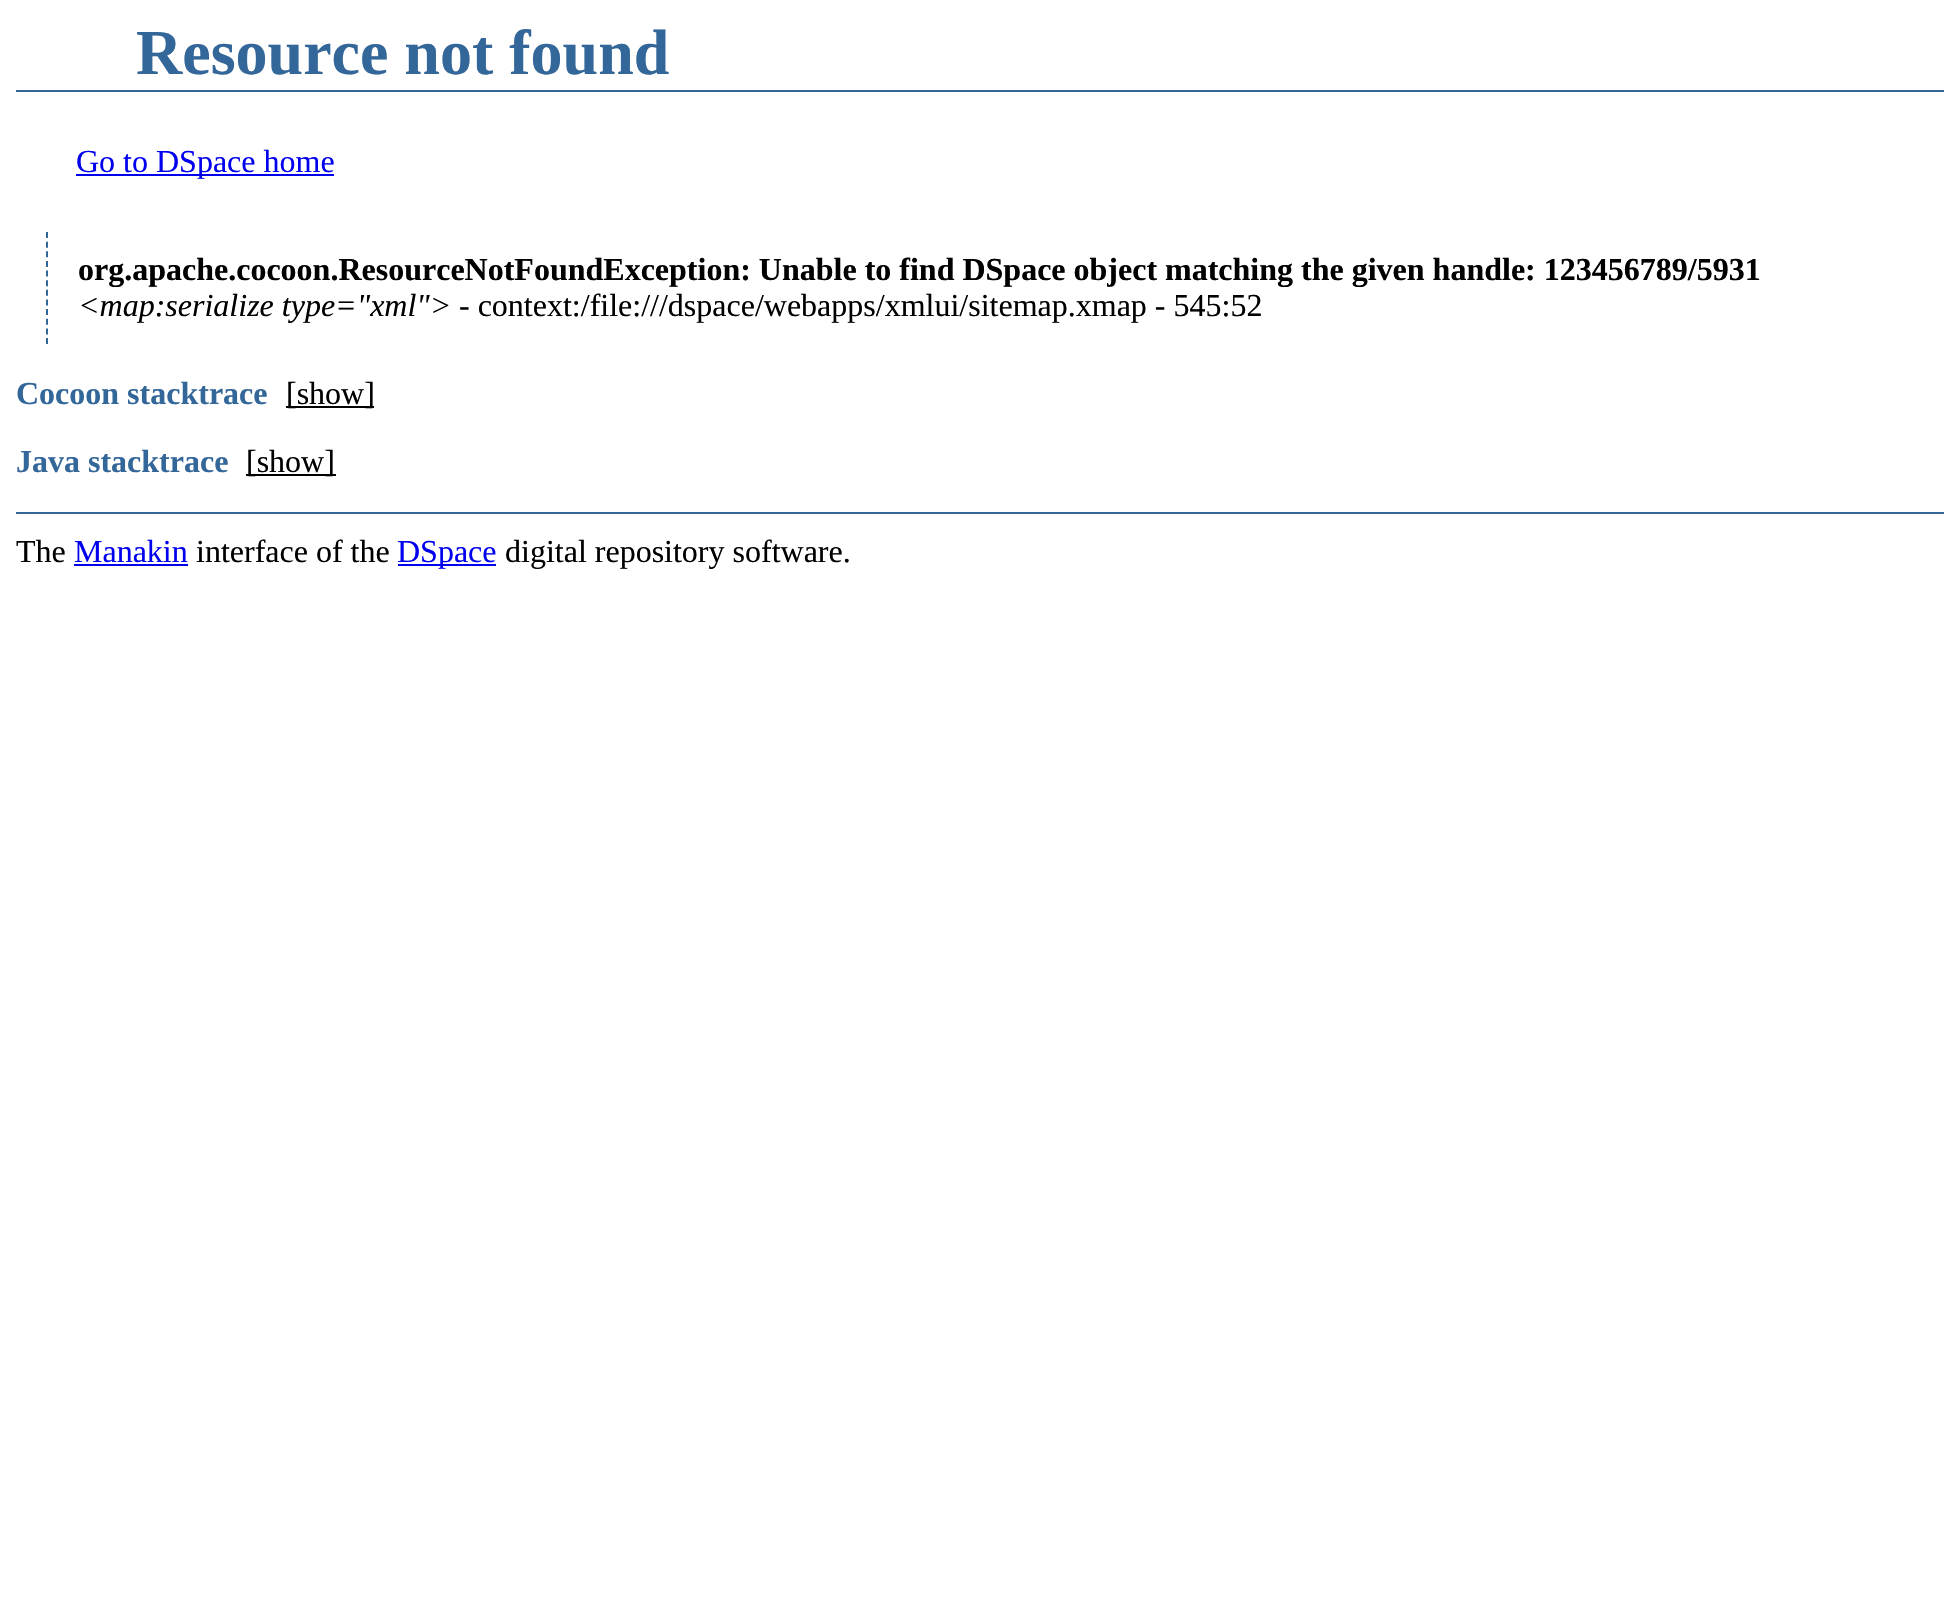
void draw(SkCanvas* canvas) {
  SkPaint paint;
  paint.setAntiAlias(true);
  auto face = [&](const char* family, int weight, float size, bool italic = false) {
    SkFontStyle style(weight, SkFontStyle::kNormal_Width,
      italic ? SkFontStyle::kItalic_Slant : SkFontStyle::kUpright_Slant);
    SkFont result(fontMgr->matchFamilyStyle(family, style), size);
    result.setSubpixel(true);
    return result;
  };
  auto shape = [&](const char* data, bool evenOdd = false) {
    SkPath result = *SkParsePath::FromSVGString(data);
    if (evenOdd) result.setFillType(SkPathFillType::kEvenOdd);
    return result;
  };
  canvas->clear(0xffffffff);
  paint.setColor(0xff336699);
  canvas->drawRect(SkRect::MakeXYWH(16, 90, 1928, 2), paint);
  paint.setColor(0xff0000ee);
  canvas->drawRect(SkRect::MakeXYWH(76, 174, 258, 2), paint);
  paint.setStroke(true);
  paint.setStrokeWidth(2);
  paint.setColor(0xff336699);
  paint.setPathEffect(SkDashPathEffect::Make({{6, 3.64f}}, 0));
  canvas->drawPath(shape("M47 232V344"), paint);
  paint.setPathEffect(nullptr);
  paint.setStroke(false);
  {
    const struct { float x, y, w, h; SkColor color; } items[] = {
      {286, 406, 88, 2, 0xff000000},
      {246, 474, 90, 2, 0xff000000},
      {16, 512, 1928, 2, 0xff336699},
      {74, 564, 114, 2, 0xff0000ee},
      {398, 564, 98, 2, 0xff0000ee},
    };
    for (auto [x, y, w, h, color] : items) {
      paint.setColor(color);
      canvas->drawRect(SkRect::MakeXYWH(x, y, w, h), paint);
    }
  }
  auto f0 = face("Liberation Serif", 700, 64);
  paint.setColor(0xff336699);
  canvas->drawString("Resource not found", 136, 74, f0, paint);
  auto f1 = face("Liberation Serif", 400, 32);
  paint.setColor(0xff0000ee);
  canvas->drawString("Go to DSpace home", 76, 172, f1, paint);
  auto f2 = face("Liberation Serif", 700, 32);
  paint.setColor(0xff000000);
  canvas->drawString("org.apache.cocoon.ResourceNotFoundException: Unable to find DSpace object matching the given handle: 123456789/5931", 78, 280, f2, paint);
  auto f3 = face("Liberation Serif", 400, 32, true);
  canvas->drawString("<map:serialize type=\"xml\">", 78, 316, f3, paint);
  canvas->drawString("- context:/file:///dspace/webapps/xmlui/sitemap.xmap - 545:52", 459, 316, f1, paint);
  paint.setColor(0xff336699);
  canvas->drawString("Cocoon stacktrace", 16, 404, f2, paint);
  paint.setColor(0xff000000);
  canvas->drawString("[show]", 286, 404, f1, paint);
  paint.setColor(0xff336699);
  canvas->drawString("Java stacktrace", 16, 472, f2, paint);
  paint.setColor(0xff000000);
  canvas->drawString("[show]", 246, 472, f1, paint);
  canvas->drawString("The", 16, 562, f1, paint);
  paint.setColor(0xff0000ee);
  canvas->drawString("Manakin", 74, 562, f1, paint);
  paint.setColor(0xff000000);
  canvas->drawString("interface of the", 196, 562, f1, paint);
  paint.setColor(0xff0000ee);
  canvas->drawString("DSpace", 397, 562, f1, paint);
  paint.setColor(0xff000000);
  canvas->drawString("digital repository software.", 505, 562, f1, paint);
}
